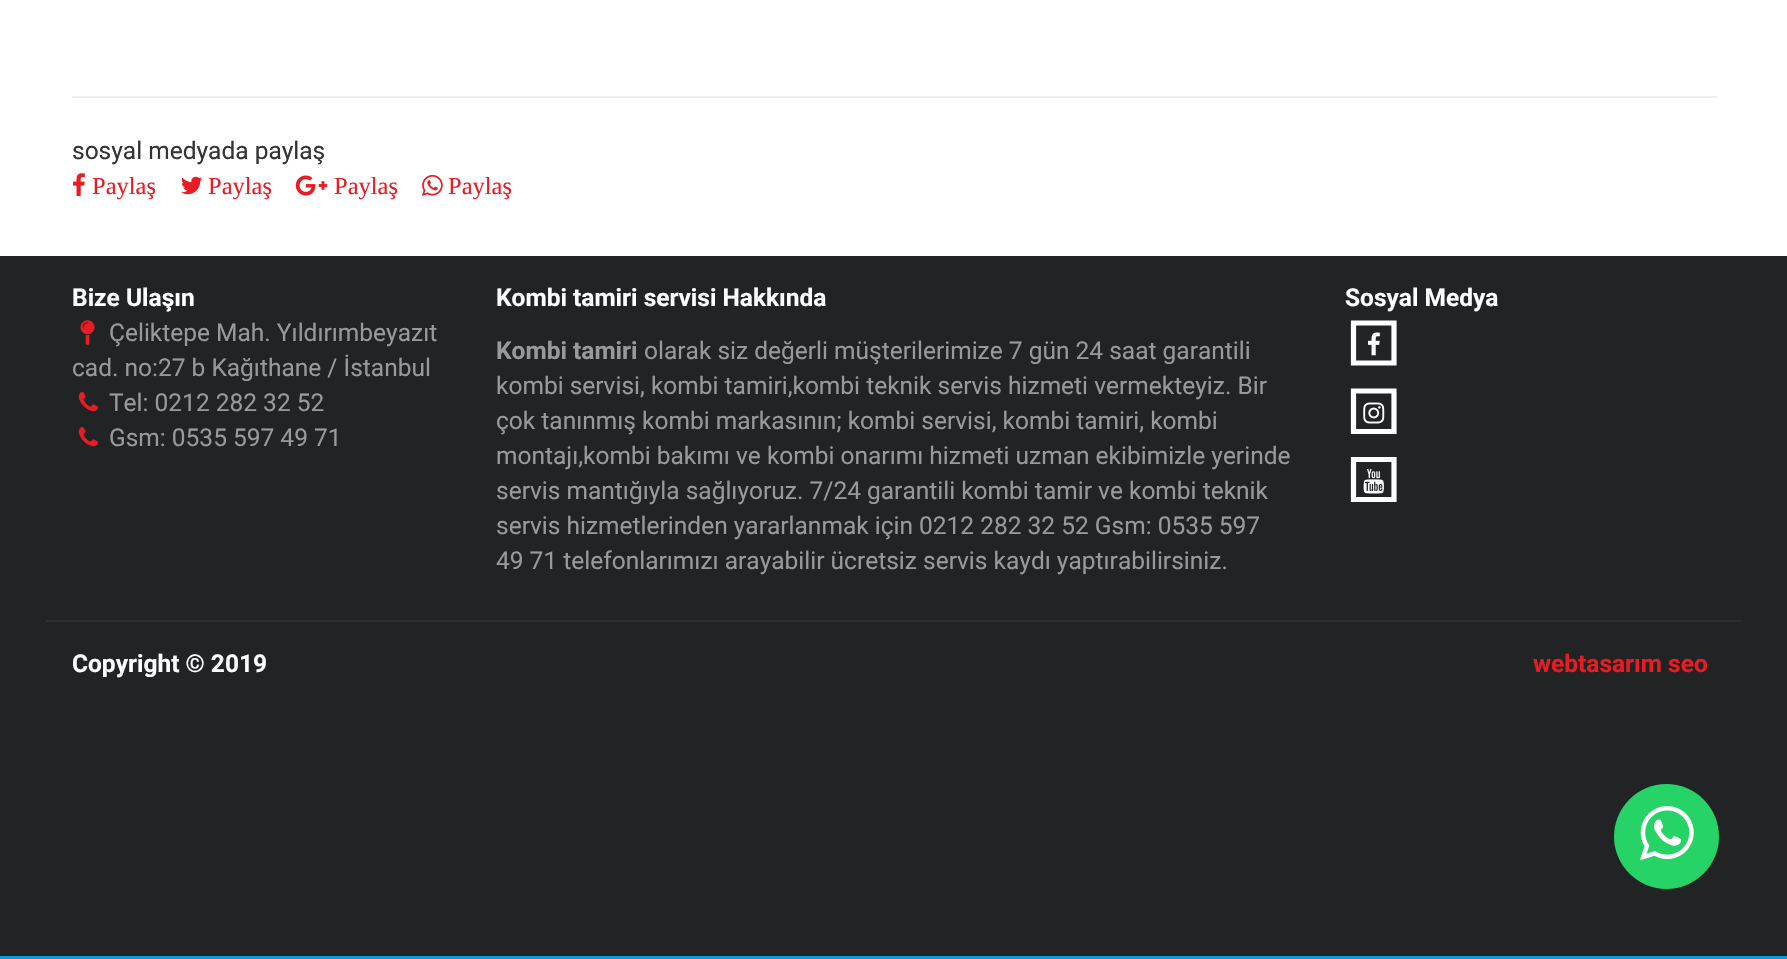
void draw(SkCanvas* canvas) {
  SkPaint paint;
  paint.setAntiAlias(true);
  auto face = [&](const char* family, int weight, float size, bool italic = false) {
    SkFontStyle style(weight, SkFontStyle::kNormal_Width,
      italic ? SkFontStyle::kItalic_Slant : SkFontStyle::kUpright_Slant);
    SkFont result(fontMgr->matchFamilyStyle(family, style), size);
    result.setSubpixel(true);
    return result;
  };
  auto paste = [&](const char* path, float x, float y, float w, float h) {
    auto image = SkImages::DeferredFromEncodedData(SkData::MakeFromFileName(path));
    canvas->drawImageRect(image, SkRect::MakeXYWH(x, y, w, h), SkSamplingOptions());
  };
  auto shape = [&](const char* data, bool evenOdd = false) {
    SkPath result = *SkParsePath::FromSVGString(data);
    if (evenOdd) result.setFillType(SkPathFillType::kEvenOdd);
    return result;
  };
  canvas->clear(0xff099be1);
  paint.setColor(0xffffffff);
  canvas->drawRect(SkRect::MakeXYWH(0, 0, 1787, 256), paint);
  paint.setColor(0xffeeeeee);
  canvas->drawRect(SkRect::MakeXYWH(72, 96, 1645, 2), paint);
  paste("img/1.png", 73, 173, 12, 23);
  paste("img/2.png", 181, 176, 22, 19);
  paste("img/3.png", 295, 175, 33, 21);
  paste("img/4.png", 421, 174, 22, 22);
  paint.setColor(0xff212324);
  canvas->drawRect(SkRect::MakeXYWH(0, 256, 1787, 700), paint);
  paste("img/5.png", 80, 320, 15, 25);
  paste("img/6.png", 78, 392, 20, 20);
  paste("img/6.png", 78, 427, 20, 20);
  paint.setStroke(true);
  paint.setStrokeWidth(5.2f);
  paint.setColor(0xffffffff);
  canvas->drawPath(shape("M1353.5 323H1394V363H1353.5Z"), paint);
  paste("img/7.png", 1368, 332, 12, 24);
  canvas->drawPath(shape("M1353.5 391H1394V431.5H1353.5Z"), paint);
  paste("img/8.png", 1363, 402, 22, 22);
  canvas->drawPath(shape("M1353.5 459.5H1394V499.5H1353.5Z"), paint);
  paste("img/9.png", 1363, 469, 21, 25);
  paint.setStroke(false);
  paint.setColor(0xff2c2e2f);
  canvas->drawRect(SkRect::MakeXYWH(46, 620, 1697, 2), paint);
  paint.setColor(0xff25d366);
  canvas->drawCircle(1666.5f, 836.5f, 52.5f, paint);
  paste("img/10.png", 1639, 806, 55, 55);
  auto f0 = face("Roboto", 400, 24.5f);
  paint.setColor(0xff333333);
  canvas->drawString("sosyal medyada paylaş", 72, 159, f0, paint);
  auto f1 = face("Liberation Serif", 400, 24.5f);
  paint.setColor(0xffe91c23);
  {
    const struct { const char* s; float x, y; } items[] = {
      {"Paylaş", 92, 194},
      {"Paylaş", 208, 194},
      {"Paylaş", 334, 194},
      {"Paylaş", 448, 194},
    };
    for (auto [s, x, y] : items) {
      canvas->drawString(s, x, y, f1, paint);
    }
  }
  auto f2 = face("Roboto", 700, 24.5f);
  paint.setColor(0xffffffff);
  canvas->drawString("Bize Ulaşın", 72, 306, f2, paint);
  paint.setColor(0xff999999);
  {
    const struct { const char* s; float x, y; } items[] = {
      {"Çeliktepe Mah. Yıldırımbeyazıt", 109, 341},
      {"cad. no:27 b Kağıthane / İstanbul", 72, 376},
      {"Tel: 0212 282 32 52", 109, 411},
      {"Gsm: 0535 597 49 71", 109, 446},
    };
    for (auto [s, x, y] : items) {
      canvas->drawString(s, x, y, f0, paint);
    }
  }
  paint.setColor(0xffffffff);
  canvas->drawString("Kombi tamiri servisi Hakkında", 496, 306, f2, paint);
  paint.setColor(0xff999999);
  canvas->drawString("Kombi tamiri", 496, 359, f2, paint);
  {
    const struct { const char* s; float x, y; } items[] = {
      {"olarak siz değerli müşterilerimize 7 gün 24 saat garantili", 644, 359},
      {"kombi servisi, kombi tamiri,kombi teknik servis hizmeti vermekteyiz. Bir", 496, 394},
      {"çok tanınmış kombi markasının; kombi servisi, kombi tamiri, kombi", 496, 429},
      {"montajı,kombi bakımı ve kombi onarımı hizmeti uzman ekibimizle yerinde", 496, 464},
      {"servis mantığıyla sağlıyoruz. 7/24 garantili kombi tamir ve kombi teknik", 496, 499},
      {"servis hizmetlerinden yararlanmak için 0212 282 32 52 Gsm: 0535 597", 496, 534},
      {"49 71 telefonlarımızı arayabilir ücretsiz servis kaydı yaptırabilirsiniz.", 496, 569},
    };
    for (auto [s, x, y] : items) {
      canvas->drawString(s, x, y, f0, paint);
    }
  }
  paint.setColor(0xffffffff);
  canvas->drawString("Sosyal Medya", 1345, 306, f2, paint);
  canvas->drawString("Copyright © 2019", 72, 672, f2, paint);
  paint.setColor(0xffe91c23);
  canvas->drawString("webtasarım seo", 1533, 672, f2, paint);
}
